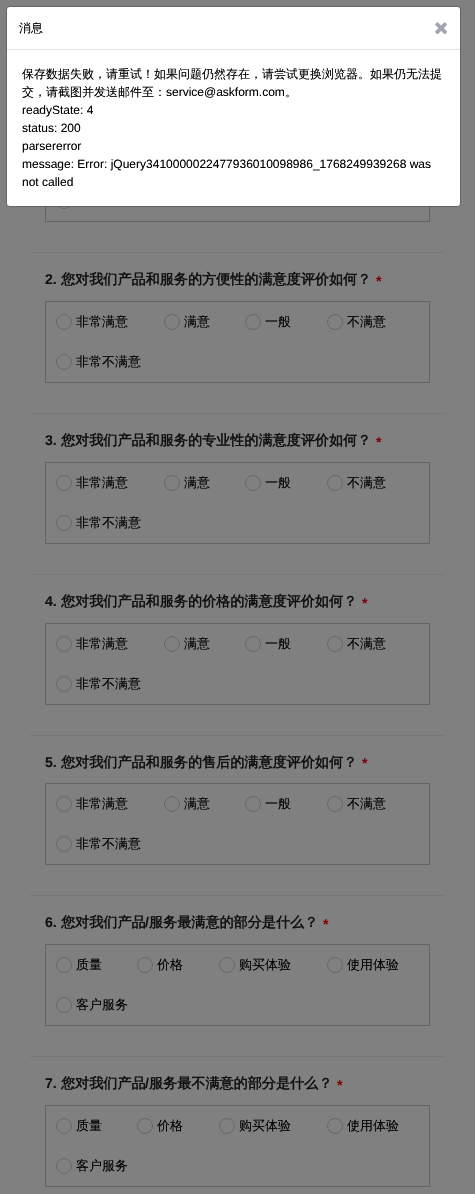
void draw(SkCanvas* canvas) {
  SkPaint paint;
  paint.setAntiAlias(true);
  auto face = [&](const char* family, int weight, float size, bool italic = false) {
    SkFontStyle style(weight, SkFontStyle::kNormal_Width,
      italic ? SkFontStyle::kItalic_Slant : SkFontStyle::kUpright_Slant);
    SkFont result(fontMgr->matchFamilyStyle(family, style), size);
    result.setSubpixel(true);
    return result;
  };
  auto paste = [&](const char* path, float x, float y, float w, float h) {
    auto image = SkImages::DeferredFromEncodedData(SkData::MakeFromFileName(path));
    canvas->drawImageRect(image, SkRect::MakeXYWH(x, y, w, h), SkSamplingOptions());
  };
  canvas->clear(0xff808080);
  paint.setStroke(true);
  paint.setStrokeWidth(1);
  paint.setColor(0xff626568);
  canvas->drawRect(SkRect::MakeXYWH(45.5f, 140.5f, 384, 81), paint);
  paint.setColor(0xff666666);
  canvas->drawCircle(64, 201, 7.5f, paint);
  paint.setStroke(false);
  paint.setColor(0xffffffff);
  canvas->drawRoundRect(SkRect::MakeXYWH(7, 7, 453, 199), 2.5f, 2.5f, paint);
  paint.setStroke(true);
  paint.setColor(0x33000000);
  canvas->drawRoundRect(SkRect::MakeXYWH(6.5f, 6.5f, 454, 200), 3.5f, 3.5f, paint);
  paint.setStroke(false);
  paint.setColor(0xffdee2e6);
  canvas->drawRect(SkRect::MakeXYWH(7, 49, 453, 1), paint);
  paste("img/1.png", 435, 22, 12, 13);
  paint.setColor(0xff777777);
  canvas->drawRect(SkRect::MakeXYWH(30, 252, 415, 1), paint);
  canvas->drawRect(SkRect::MakeXYWH(30, 413, 415, 1), paint);
  paint.setStroke(true);
  paint.setColor(0xff626568);
  canvas->drawRect(SkRect::MakeXYWH(45.5f, 301.5f, 384, 81), paint);
  paint.setColor(0xff666666);
  canvas->drawCircle(64, 322, 7.5f, paint);
  canvas->drawCircle(172, 322, 7.5f, paint);
  canvas->drawCircle(253, 322, 7.5f, paint);
  canvas->drawCircle(335, 322, 7.5f, paint);
  canvas->drawCircle(64, 362, 7.5f, paint);
  paint.setStroke(false);
  paint.setColor(0xff777777);
  canvas->drawRect(SkRect::MakeXYWH(30, 574, 415, 1), paint);
  paint.setStroke(true);
  paint.setColor(0xff626568);
  canvas->drawRect(SkRect::MakeXYWH(45.5f, 462.5f, 384, 81), paint);
  paint.setColor(0xff666666);
  canvas->drawCircle(64, 483, 7.5f, paint);
  canvas->drawCircle(172, 483, 7.5f, paint);
  canvas->drawCircle(253, 483, 7.5f, paint);
  canvas->drawCircle(335, 483, 7.5f, paint);
  canvas->drawCircle(64, 523, 7.5f, paint);
  paint.setStroke(false);
  paint.setColor(0xff777777);
  canvas->drawRect(SkRect::MakeXYWH(30, 735, 415, 1), paint);
  paint.setStroke(true);
  paint.setColor(0xff626568);
  canvas->drawRect(SkRect::MakeXYWH(45.5f, 623.5f, 384, 81), paint);
  paint.setColor(0xff666666);
  canvas->drawCircle(64, 644, 7.5f, paint);
  canvas->drawCircle(172, 644, 7.5f, paint);
  canvas->drawCircle(253, 644, 7.5f, paint);
  canvas->drawCircle(335, 644, 7.5f, paint);
  canvas->drawCircle(64, 684, 7.5f, paint);
  paint.setStroke(false);
  paint.setColor(0xff777777);
  canvas->drawRect(SkRect::MakeXYWH(30, 895, 415, 1), paint);
  paint.setStroke(true);
  paint.setColor(0xff626568);
  canvas->drawRect(SkRect::MakeXYWH(45.5f, 783.5f, 384, 81), paint);
  paint.setColor(0xff666666);
  canvas->drawCircle(64, 804, 7.5f, paint);
  canvas->drawCircle(172, 804, 7.5f, paint);
  canvas->drawCircle(253, 804, 7.5f, paint);
  canvas->drawCircle(335, 804, 7.5f, paint);
  canvas->drawCircle(64, 844, 7.5f, paint);
  paint.setStroke(false);
  paint.setColor(0xff777777);
  canvas->drawRect(SkRect::MakeXYWH(30, 1056, 415, 1), paint);
  paint.setStroke(true);
  paint.setColor(0xff626568);
  canvas->drawRect(SkRect::MakeXYWH(45.5f, 944.5f, 384, 81), paint);
  paint.setColor(0xff666666);
  canvas->drawCircle(64, 965, 7.5f, paint);
  canvas->drawCircle(145, 965, 7.5f, paint);
  canvas->drawCircle(227, 965, 7.5f, paint);
  canvas->drawCircle(335, 965, 7.5f, paint);
  canvas->drawCircle(64, 1005, 7.5f, paint);
  paint.setColor(0xff626568);
  canvas->drawRect(SkRect::MakeXYWH(45.5f, 1105.5f, 384, 81), paint);
  paint.setColor(0xff666666);
  canvas->drawCircle(64, 1126, 7.5f, paint);
  canvas->drawCircle(145, 1126, 7.5f, paint);
  canvas->drawCircle(227, 1126, 7.5f, paint);
  canvas->drawCircle(335, 1126, 7.5f, paint);
  canvas->drawCircle(64, 1166, 7.5f, paint);
  auto f0 = face("WenQuanYi Zen Hei", 500, 12);
  paint.setStroke(false);
  paint.setColor(0xff000000);
  {
    const struct { const char* s; float x, y; } items[] = {
      {"消息", 19, 32},
      {"保存数据失败，请重试！如果问题仍然存在，请尝试更换浏览器。如果仍无法提", 22, 78},
      {"交，请截图并发送邮件至：", 22, 96},
    };
    for (auto [s, x, y] : items) {
      canvas->drawString(s, x, y, f0, paint);
    }
  }
  auto f1 = face("Liberation Sans", 400, 12);
  canvas->drawString("service@askform.com", 166, 96, f1, paint);
  canvas->drawString("。", 285, 96, f0, paint);
  {
    const struct { const char* s; float x, y; } items[] = {
      {"readyState: 4", 22, 114},
      {"status: 200", 22, 132},
      {"parsererror", 22, 150},
      {"message: Error: jQuery3410000022477936010098986_1768249939268 was", 22, 168},
      {"not called", 22, 186},
    };
    for (auto [s, x, y] : items) {
      canvas->drawString(s, x, y, f1, paint);
    }
  }
  auto f2 = face("Liberation Sans", 700, 14.1f);
  paint.setColor(0xff111111);
  canvas->drawString("2.", 45, 284, f2, paint);
  auto f3 = face("WenQuanYi Zen Hei", 700, 14.1f);
  canvas->drawString("您对我们产品和服务的方便性的满意度评价如何？", 61, 284, f3, paint);
  paint.setColor(0xff800000);
  canvas->drawString("*", 376, 286, f2, paint);
  auto f4 = face("WenQuanYi Zen Hei", 500, 13);
  paint.setColor(0xff000000);
  {
    const struct { const char* s; float x, y; } items[] = {
      {"非常满意", 76, 326},
      {"满意", 184, 326},
      {"一般", 265, 326},
      {"不满意", 347, 326},
      {"非常不满意", 76, 366},
    };
    for (auto [s, x, y] : items) {
      canvas->drawString(s, x, y, f4, paint);
    }
  }
  paint.setColor(0xff111111);
  canvas->drawString("3.", 45, 445, f2, paint);
  canvas->drawString("您对我们产品和服务的专业性的满意度评价如何？", 61, 445, f3, paint);
  paint.setColor(0xff800000);
  canvas->drawString("*", 376, 447, f2, paint);
  paint.setColor(0xff000000);
  {
    const struct { const char* s; float x, y; } items[] = {
      {"非常满意", 76, 487},
      {"满意", 184, 487},
      {"一般", 265, 487},
      {"不满意", 347, 487},
      {"非常不满意", 76, 527},
    };
    for (auto [s, x, y] : items) {
      canvas->drawString(s, x, y, f4, paint);
    }
  }
  paint.setColor(0xff111111);
  canvas->drawString("4.", 45, 606, f2, paint);
  canvas->drawString("您对我们产品和服务的价格的满意度评价如何？", 61, 606, f3, paint);
  paint.setColor(0xff800000);
  canvas->drawString("*", 362, 608, f2, paint);
  paint.setColor(0xff000000);
  {
    const struct { const char* s; float x, y; } items[] = {
      {"非常满意", 76, 648},
      {"满意", 184, 648},
      {"一般", 265, 648},
      {"不满意", 347, 648},
      {"非常不满意", 76, 688},
    };
    for (auto [s, x, y] : items) {
      canvas->drawString(s, x, y, f4, paint);
    }
  }
  paint.setColor(0xff111111);
  canvas->drawString("5.", 45, 767, f2, paint);
  canvas->drawString("您对我们产品和服务的售后的满意度评价如何？", 61, 767, f3, paint);
  paint.setColor(0xff800000);
  canvas->drawString("*", 362, 768, f2, paint);
  paint.setColor(0xff000000);
  {
    const struct { const char* s; float x, y; } items[] = {
      {"非常满意", 76, 808},
      {"满意", 184, 808},
      {"一般", 265, 808},
      {"不满意", 347, 808},
      {"非常不满意", 76, 848},
    };
    for (auto [s, x, y] : items) {
      canvas->drawString(s, x, y, f4, paint);
    }
  }
  paint.setColor(0xff111111);
  canvas->drawString("6.", 45, 927, f2, paint);
  canvas->drawString("您对我们产品", 61, 927, f3, paint);
  canvas->drawString("/", 145, 927, f2, paint);
  canvas->drawString("服务最满意的部分是什么？", 149, 927, f3, paint);
  paint.setColor(0xff800000);
  canvas->drawString("*", 323, 929, f2, paint);
  paint.setColor(0xff000000);
  {
    const struct { const char* s; float x, y; } items[] = {
      {"质量", 76, 969},
      {"价格", 157, 969},
      {"购买体验", 239, 969},
      {"使用体验", 347, 969},
      {"客户服务", 76, 1009},
    };
    for (auto [s, x, y] : items) {
      canvas->drawString(s, x, y, f4, paint);
    }
  }
  paint.setColor(0xff111111);
  canvas->drawString("7.", 45, 1088, f2, paint);
  canvas->drawString("您对我们产品", 61, 1088, f3, paint);
  canvas->drawString("/", 145, 1088, f2, paint);
  canvas->drawString("服务最不满意的部分是什么？", 149, 1088, f3, paint);
  paint.setColor(0xff800000);
  canvas->drawString("*", 337, 1090, f2, paint);
  paint.setColor(0xff000000);
  {
    const struct { const char* s; float x, y; } items[] = {
      {"质量", 76, 1130},
      {"价格", 157, 1130},
      {"购买体验", 239, 1130},
      {"使用体验", 347, 1130},
      {"客户服务", 76, 1170},
    };
    for (auto [s, x, y] : items) {
      canvas->drawString(s, x, y, f4, paint);
    }
  }
}
